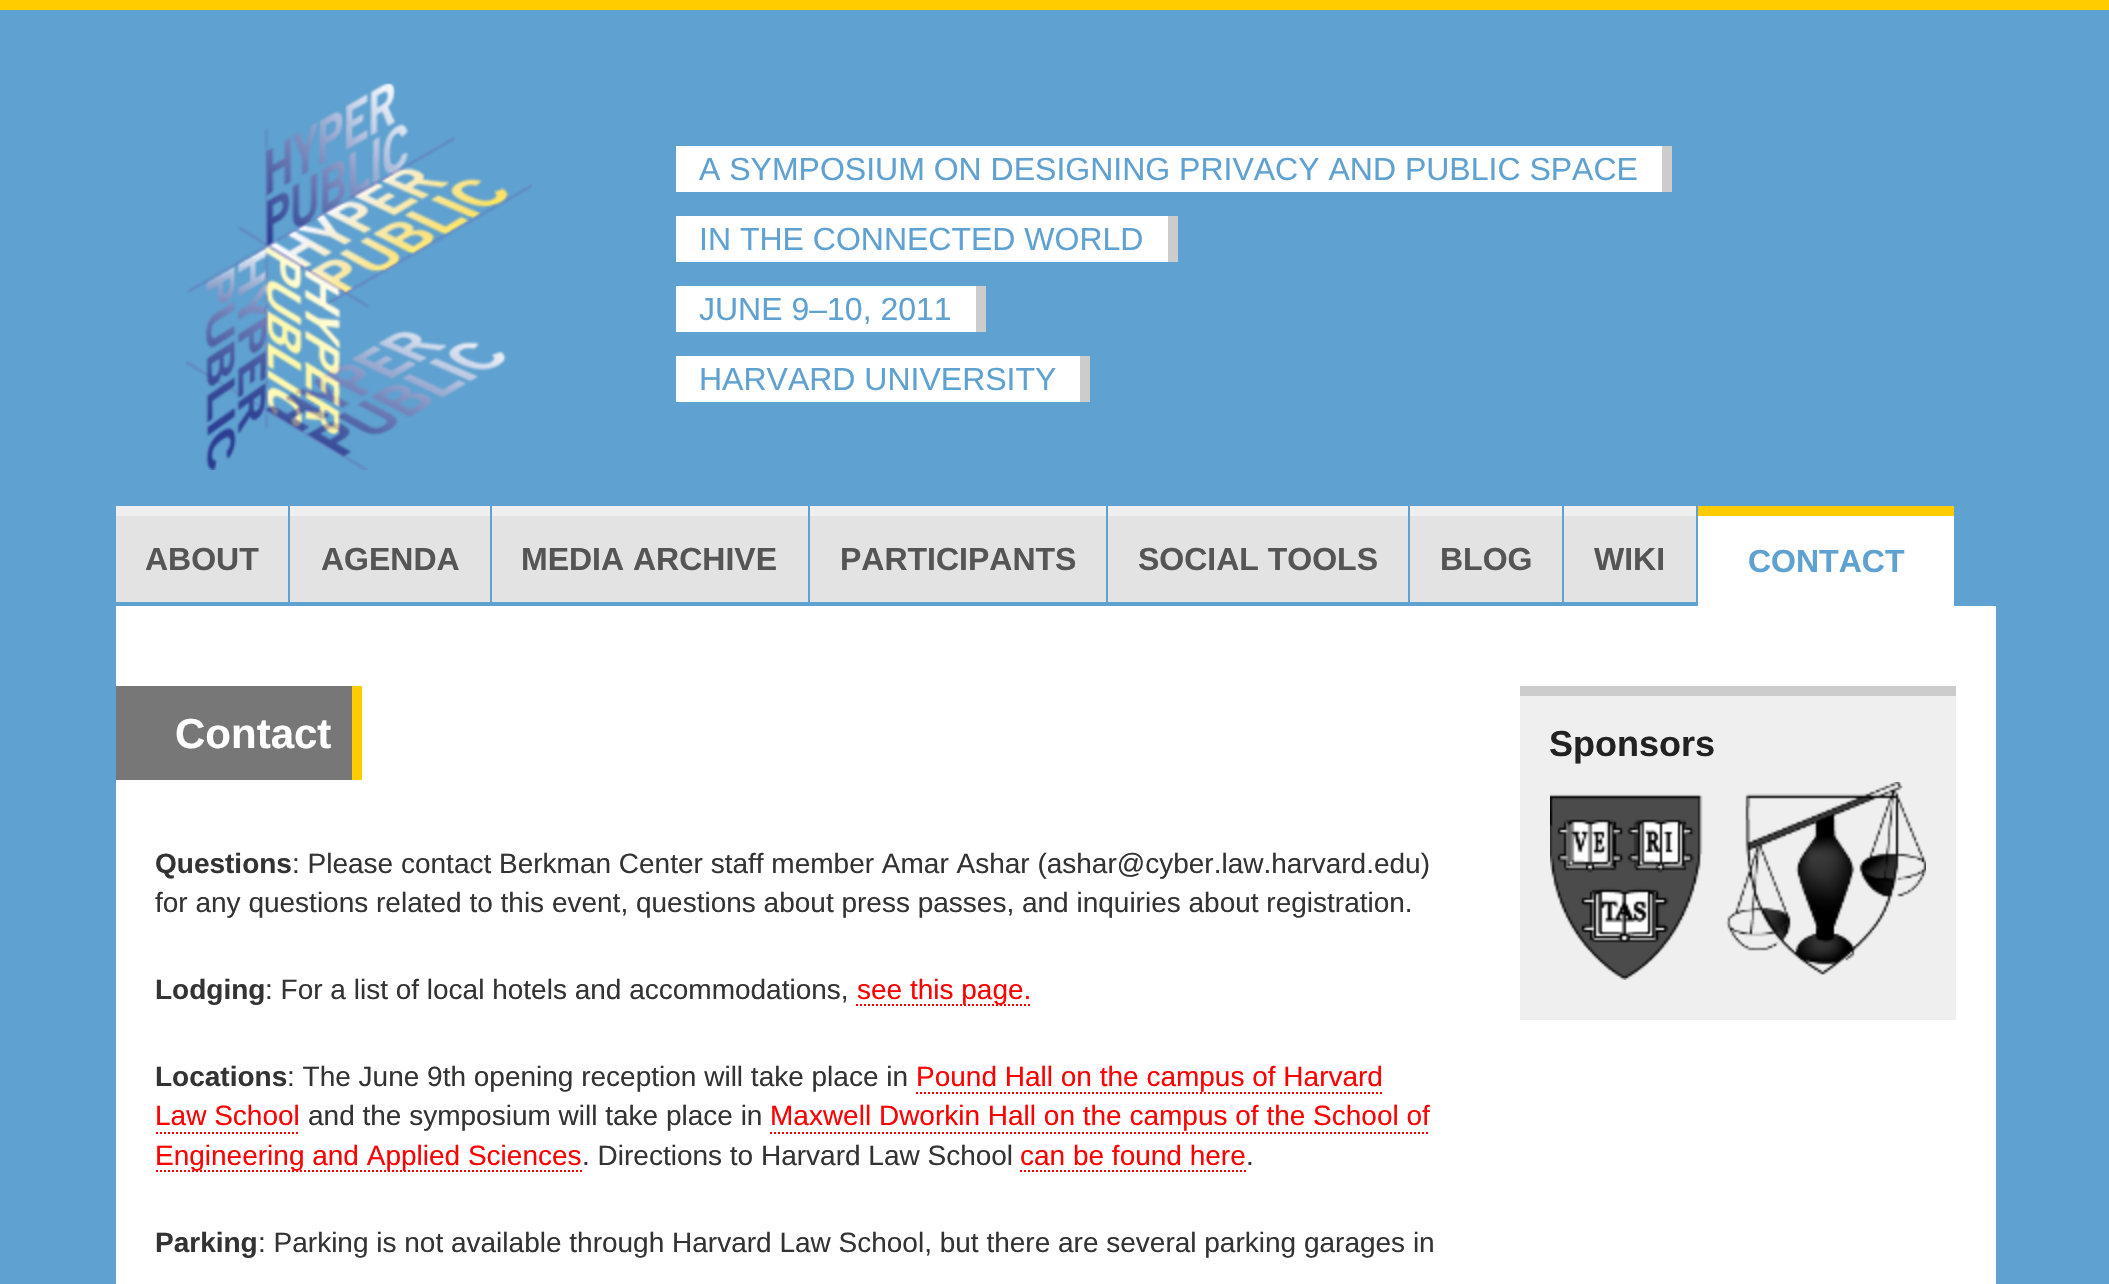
void draw(SkCanvas* canvas) {
  SkPaint paint;
  paint.setAntiAlias(true);
  auto face = [&](const char* family, int weight, float size, bool italic = false) {
    SkFontStyle style(weight, SkFontStyle::kNormal_Width,
      italic ? SkFontStyle::kItalic_Slant : SkFontStyle::kUpright_Slant);
    SkFont result(fontMgr->matchFamilyStyle(family, style), size);
    result.setSubpixel(true);
    return result;
  };
  auto paste = [&](const char* path, float x, float y, float w, float h) {
    auto image = SkImages::DeferredFromEncodedData(SkData::MakeFromFileName(path));
    canvas->drawImageRect(image, SkRect::MakeXYWH(x, y, w, h), SkSamplingOptions());
  };
  auto shape = [&](const char* data, bool evenOdd = false) {
    SkPath result = *SkParsePath::FromSVGString(data);
    if (evenOdd) result.setFillType(SkPathFillType::kEvenOdd);
    return result;
  };
  canvas->clear(0xff5fa1d0);
  paint.setColor(0xffffcc00);
  canvas->drawRect(SkRect::MakeXYWH(0, 0, 2109, 10), paint);
  paste("img/1.png", 185, 83, 347, 387);
  {
    const struct { float x, y, w, h; SkColor color; } items[] = {
      {676, 146, 986, 46, 0xffffffff},
      {1662, 146, 10, 46, 0xffcccccc},
      {676, 216, 492, 46, 0xffffffff},
      {1168, 216, 10, 46, 0xffcccccc},
      {676, 286, 300, 46, 0xffffffff},
      {976, 286, 10, 46, 0xffcccccc},
      {676, 356, 404, 46, 0xffffffff},
      {1080, 356, 10, 46, 0xffcccccc},
      {116, 516, 172, 86, 0xffe3e3e3},
      {116, 506, 172, 10, 0xffefefef},
      {290, 516, 200, 86, 0xffe3e3e3},
      {290, 506, 200, 10, 0xffefefef},
      {492, 516, 316, 86, 0xffe3e3e3},
      {492, 506, 316, 10, 0xffefefef},
      {810, 516, 296, 86, 0xffe3e3e3},
      {810, 506, 296, 10, 0xffefefef},
      {1108, 516, 300, 86, 0xffe3e3e3},
      {1108, 506, 300, 10, 0xffefefef},
      {1410, 516, 152, 86, 0xffe3e3e3},
      {1410, 506, 152, 10, 0xffefefef},
      {1564, 516, 132, 86, 0xffe3e3e3},
      {1564, 506, 132, 10, 0xffefefef},
      {1698, 516, 256, 90, 0xffffffff},
      {1698, 506, 256, 10, 0xffffcc00},
      {116, 606, 1880, 678, 0xffffffff},
      {116, 686, 236, 94, 0xff777777},
      {352, 686, 10, 94, 0xffffcc00},
    };
    for (auto [x, y, w, h, color] : items) {
      paint.setColor(color);
      canvas->drawRect(SkRect::MakeXYWH(x, y, w, h), paint);
    }
  }
  paint.setStroke(true);
  paint.setStrokeWidth(2);
  paint.setColor(0xffff0000);
  paint.setPathEffect(SkDashPathEffect::Make({{2, 2}}, 0));
  canvas->drawPath(shape("M856 1005H1032"), paint);
  paint.setPathEffect(nullptr);
  paint.setPathEffect(SkDashPathEffect::Make({{2, 2}}, 0));
  canvas->drawPath(shape("M916 1093H1384"), paint);
  paint.setPathEffect(nullptr);
  paint.setPathEffect(SkDashPathEffect::Make({{2, 2}}, 0));
  canvas->drawPath(shape("M156 1133H300"), paint);
  paint.setPathEffect(nullptr);
  paint.setPathEffect(SkDashPathEffect::Make({{2, 2}}, 0));
  canvas->drawPath(shape("M770 1133H1430"), paint);
  paint.setPathEffect(nullptr);
  paint.setPathEffect(SkDashPathEffect::Make({{2, 2}}, 0));
  canvas->drawPath(shape("M156 1171H582"), paint);
  paint.setPathEffect(nullptr);
  paint.setPathEffect(SkDashPathEffect::Make({{2, 2}}, 0));
  canvas->drawPath(shape("M1020 1171H1246"), paint);
  paint.setPathEffect(nullptr);
  paint.setStroke(false);
  paint.setColor(0xffefefef);
  canvas->drawRect(SkRect::MakeXYWH(1520, 696, 436, 324), paint);
  paint.setColor(0xffcccccc);
  canvas->drawRect(SkRect::MakeXYWH(1520, 686, 436, 10), paint);
  paste("img/2.png", 1550, 782, 376, 198);
  auto f0 = face("Liberation Sans", 400, 32);
  paint.setColor(0xff5fa1d0);
  {
    const struct { const char* s; float x, y; } items[] = {
      {"A SYMPOSIUM ON DESIGNING PRIVACY AND PUBLIC SPACE", 699, 180},
      {"IN THE CONNECTED WORLD", 699, 250},
      {"JUNE 9–10, 2011", 699, 320},
      {"HARVARD UNIVERSITY", 699, 390},
    };
    for (auto [s, x, y] : items) {
      canvas->drawString(s, x, y, f0, paint);
    }
  }
  auto f1 = face("Liberation Sans", 700, 32);
  paint.setColor(0xff555555);
  {
    const struct { const char* s; float x, y; } items[] = {
      {"ABOUT", 145, 570},
      {"AGENDA", 321, 570},
      {"MEDIA ARCHIVE", 521, 570},
      {"PARTICIPANTS", 840, 570},
      {"SOCIAL TOOLS", 1138, 570},
      {"BLOG", 1440, 570},
      {"WIKI", 1594, 570},
    };
    for (auto [s, x, y] : items) {
      canvas->drawString(s, x, y, f1, paint);
    }
  }
  paint.setColor(0xff5fa1d0);
  canvas->drawString("CONTACT", 1748, 572, f1, paint);
  auto f2 = face("Liberation Sans", 700, 42);
  paint.setColor(0xffffffff);
  canvas->drawString("Contact", 175, 748, f2, paint);
  auto f3 = face("Liberation Sans", 700, 28);
  paint.setColor(0xff333333);
  canvas->drawString("Questions", 155, 873, f3, paint);
  auto f4 = face("Liberation Sans", 400, 28);
  canvas->drawString(": Please contact Berkman Center staff member Amar Ashar (ashar@cyber.law.harvard.edu)", 292, 873, f4, paint);
  canvas->drawString("for any questions related to this event, questions about press passes, and inquiries about registration.", 155, 912, f4, paint);
  canvas->drawString("Lodging", 155, 999, f3, paint);
  canvas->drawString(": For a list of local hotels and accommodations,", 265, 999, f4, paint);
  paint.setColor(0xffff0000);
  canvas->drawString("see this page.", 857, 999, f4, paint);
  paint.setColor(0xff333333);
  canvas->drawString("Locations", 155, 1086, f3, paint);
  canvas->drawString(": The June 9th opening reception will take place in", 287, 1086, f4, paint);
  paint.setColor(0xffff0000);
  canvas->drawString("Pound Hall on the campus of Harvard", 916, 1086, f4, paint);
  canvas->drawString("Law School", 155, 1125, f4, paint);
  paint.setColor(0xff333333);
  canvas->drawString("and the symposium will take place in", 308, 1125, f4, paint);
  paint.setColor(0xffff0000);
  canvas->drawString("Maxwell Dworkin Hall on the campus of the School of", 770, 1125, f4, paint);
  canvas->drawString("Engineering and Applied Sciences", 155, 1165, f4, paint);
  paint.setColor(0xff333333);
  canvas->drawString(". Directions to Harvard Law School", 582, 1165, f4, paint);
  paint.setColor(0xffff0000);
  canvas->drawString("can be found here", 1020, 1165, f4, paint);
  paint.setColor(0xff333333);
  canvas->drawString(".", 1246, 1165, f4, paint);
  canvas->drawString("Parking", 155, 1252, f3, paint);
  canvas->drawString(": Parking is not available through Harvard Law School, but there are several parking garages in", 258, 1252, f4, paint);
  auto f5 = face("Liberation Sans", 700, 36);
  paint.setColor(0xff222222);
  canvas->drawString("Sponsors", 1549, 756, f5, paint);
}
